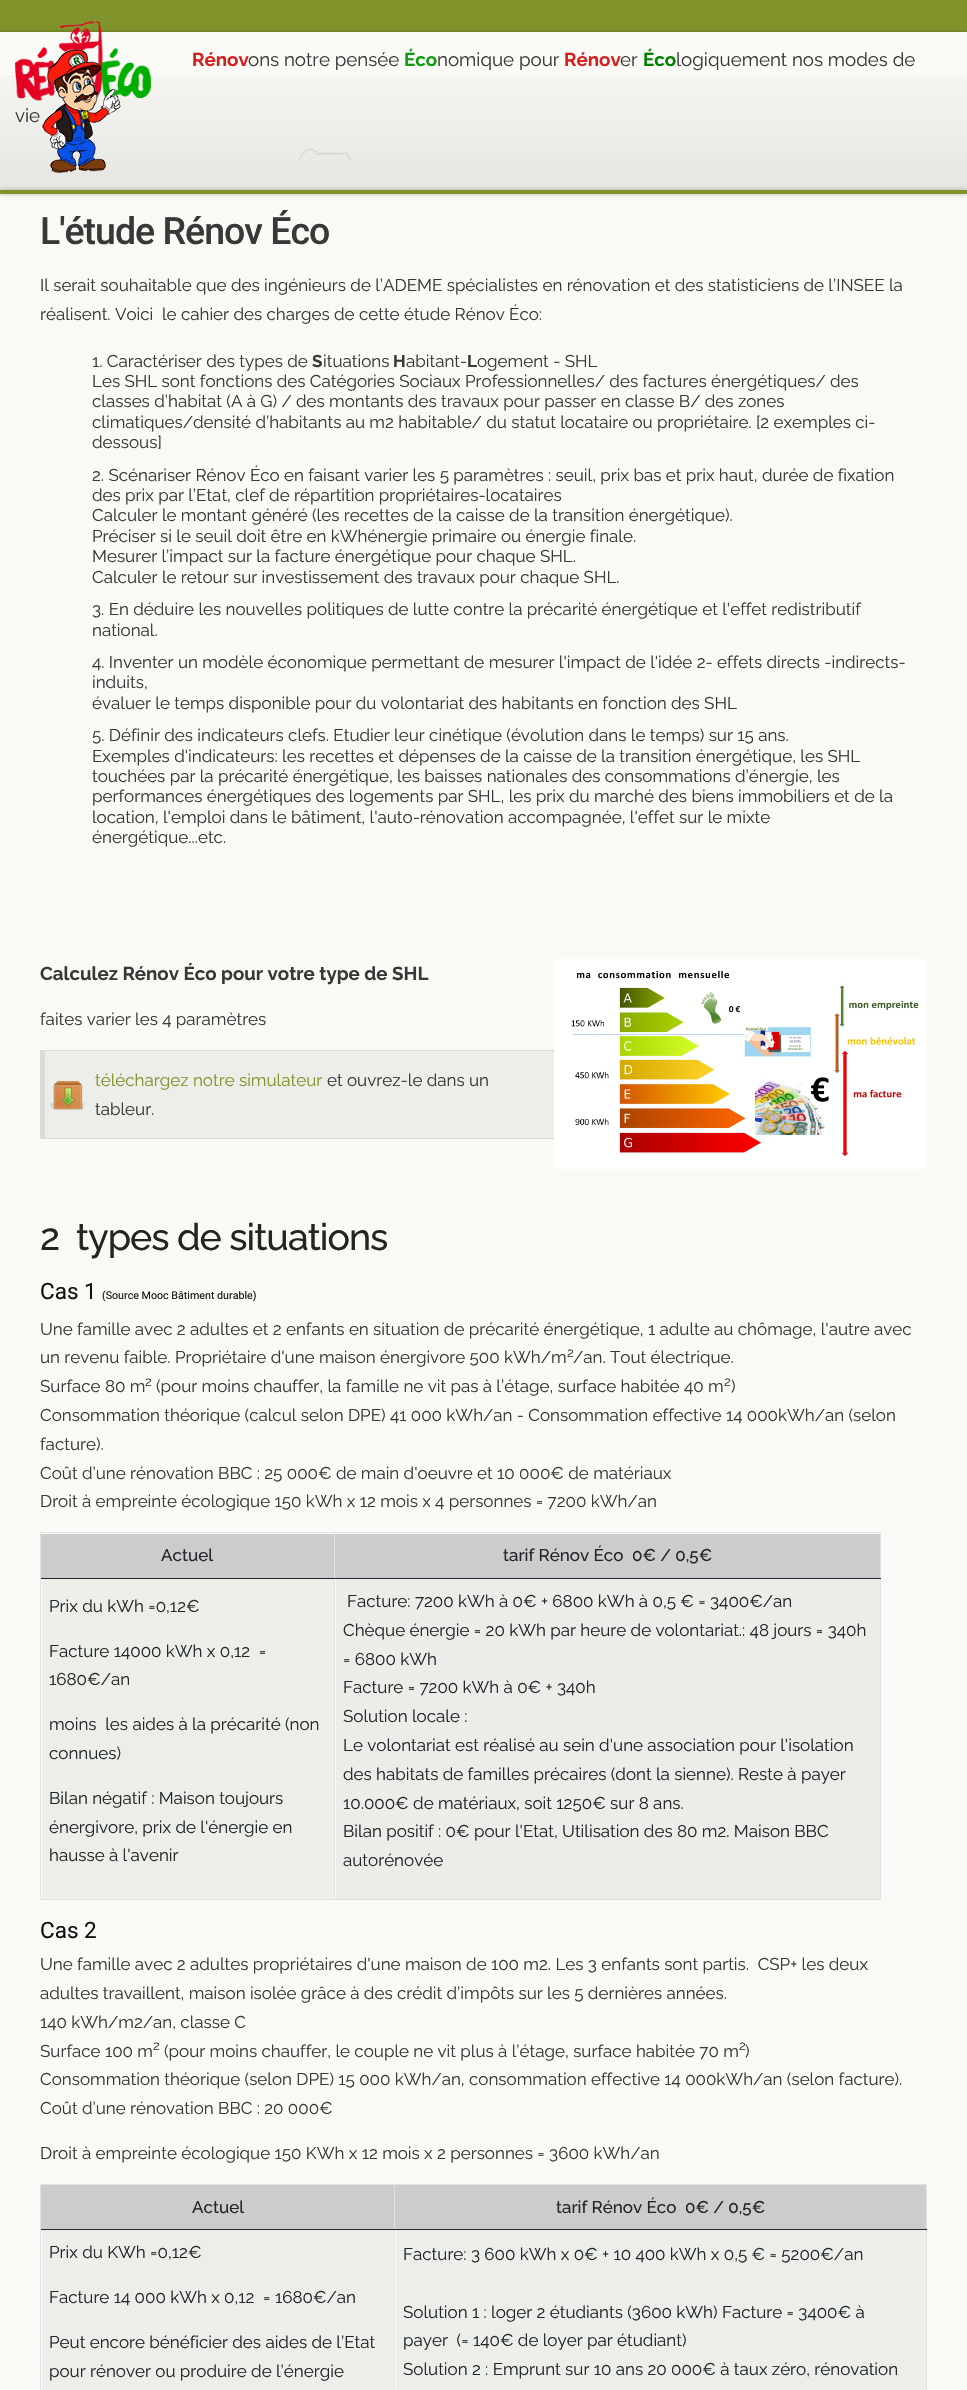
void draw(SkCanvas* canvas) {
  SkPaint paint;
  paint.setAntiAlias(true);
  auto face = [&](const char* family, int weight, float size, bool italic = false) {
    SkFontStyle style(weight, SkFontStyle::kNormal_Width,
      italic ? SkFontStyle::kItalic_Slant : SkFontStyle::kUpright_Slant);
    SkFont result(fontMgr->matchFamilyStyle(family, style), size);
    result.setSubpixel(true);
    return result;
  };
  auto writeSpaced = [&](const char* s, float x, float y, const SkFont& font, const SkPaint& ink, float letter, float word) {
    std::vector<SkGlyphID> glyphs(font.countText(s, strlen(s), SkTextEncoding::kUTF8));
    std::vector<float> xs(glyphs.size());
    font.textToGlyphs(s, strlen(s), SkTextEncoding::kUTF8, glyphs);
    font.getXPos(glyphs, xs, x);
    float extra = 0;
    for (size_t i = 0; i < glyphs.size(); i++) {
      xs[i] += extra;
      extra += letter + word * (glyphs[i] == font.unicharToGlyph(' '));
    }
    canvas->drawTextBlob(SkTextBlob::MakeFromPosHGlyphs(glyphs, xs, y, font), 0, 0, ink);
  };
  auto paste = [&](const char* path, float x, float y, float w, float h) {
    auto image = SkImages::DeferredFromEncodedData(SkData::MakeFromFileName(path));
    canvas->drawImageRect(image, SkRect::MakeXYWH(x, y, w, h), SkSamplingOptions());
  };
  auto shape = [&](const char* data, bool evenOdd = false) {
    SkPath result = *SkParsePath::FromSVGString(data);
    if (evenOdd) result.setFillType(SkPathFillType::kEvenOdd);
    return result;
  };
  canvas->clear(0xfff9faf5);
  paste("img/1.png", 0, 32, 967, 128);
  paint.setColor(0xff81942b);
  canvas->drawRect(SkRect::MakeXYWH(0, 0, 967, 32), paint);
  canvas->save();
  canvas->clipRect(SkRect::MakeXYWH(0, 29, 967, 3));
  paint.setColor(0x47000000);
  paint.setMaskFilter(SkMaskFilter::MakeBlur(kNormal_SkBlurStyle, 2));
  canvas->drawRect(SkRect::MakeXYWH(0, 32, 967, 158), paint);
  paint.setMaskFilter(nullptr);
  canvas->restore();
  paint.setColor(0xe6f9faf5);
  canvas->drawRect(SkRect::MakeXYWH(0, 32, 967, 128), paint);
  {
    const SkColor colors[] = {0x14000000, 0x00000000};
    const float stops[] = {0, 1};
    const SkPoint ends[] = {{484, 190}, {484, 32}};
    paint.setShader(SkGradientShader::MakeLinear(ends, colors, stops, 2, SkTileMode::kClamp));
    paint.setAlpha(255);
  }
  canvas->drawRect(SkRect::MakeXYWH(0, 75, 967, 115), paint);
  paste("img/2.png", 15, 21, 136, 80);
  paste("img/3.png", 42, 49, 79, 124);
  paint.setShader(nullptr);
  paint.setColor(0x47000000);
  paint.setMaskFilter(SkMaskFilter::MakeBlur(kNormal_SkBlurStyle, 2));
  canvas->drawRect(SkRect::MakeXYWH(0, 190, 967, 4), paint);
  paint.setMaskFilter(nullptr);
  paint.setColor(0xff81942b);
  canvas->drawRect(SkRect::MakeXYWH(0, 190, 967, 4), paint);
  paint.setColor(0xffeceee9);
  canvas->drawRect(SkRect::MakeXYWH(40, 1050, 514, 89), paint);
  paint.setColor(0xffd9dbd6);
  canvas->drawPath(shape("M40 1050H927L926 1051H45Z"), paint);
  paint.setColor(0x14000000);
  canvas->drawPath(shape("M927 1139H40L45 1138H926Z"), paint);
  paste("img/4.png", 554, 959, 373, 210);
  paste("img/5.png", 50, 1081, 35, 29);
  canvas->drawPath(shape("M40 1139V1050L45 1051V1138Z"), paint);
  {
    const struct { float x, y, w, h; SkColor color; } items[] = {
      {41, 1534, 839, 44, 0xffcccccc},
      {40, 1532, 841, 1, 0xffdfe3e7},
      {40, 1899, 841, 1, 0xffdfe3e7},
      {880, 1532, 1, 368, 0xffdfe3e7},
      {334, 1578, 1, 322, 0xffdfe3e7},
      {334, 1578, 547, 1, 0xff22262a},
      {334, 1532, 1, 47, 0xffdfe3e7},
      {40, 1578, 1, 322, 0xffdfe3e7},
      {40, 1578, 295, 1, 0xff22262a},
      {40, 1532, 1, 47, 0xffdfe3e7},
      {42, 1579, 292, 320, 0xffeceee8},
      {336, 1579, 544, 320, 0xffecede8},
      {41, 2185, 885, 44, 0xffcccccc},
      {40, 2184, 887, 1, 0xffdfe3e7},
      {926, 2184, 1, 206, 0xffdfe3e7},
      {394, 2229, 1, 161, 0xffdfe3e7},
      {394, 2229, 533, 1, 0xff22262a},
      {394, 2184, 1, 46, 0xffdfe3e7},
      {40, 2229, 1, 161, 0xffdfe3e7},
      {40, 2229, 355, 1, 0xff22262a},
      {40, 2184, 1, 46, 0xffdfe3e7},
      {42, 2230, 352, 160, 0xffedeee9},
      {396, 2230, 530, 160, 0xffeceee9},
    };
    for (auto [x, y, w, h, color] : items) {
      paint.setColor(color);
      canvas->drawRect(SkRect::MakeXYWH(x, y, w, h), paint);
    }
  }
  auto f0 = face("Raleway", 700, 18.75f);
  paint.setColor(0xffd61f1f);
  canvas->drawString("Rénov", 192, 66, f0, paint);
  auto f1 = face("Raleway", 400, 18.75f);
  paint.setColor(0xff383838);
  canvas->drawString("ons notre pensée", 248, 66, f1, paint);
  paint.setColor(0xff129b12);
  canvas->drawString("Éco", 404, 66, f0, paint);
  paint.setColor(0xff383838);
  canvas->drawString("nomique pour", 437, 66, f1, paint);
  paint.setColor(0xffd61f1f);
  canvas->drawString("Rénov", 564, 66, f0, paint);
  paint.setColor(0xff383838);
  canvas->drawString("er", 620, 66, f1, paint);
  paint.setColor(0xff008000);
  canvas->drawString("Éco", 643, 66, f0, paint);
  paint.setColor(0xff383838);
  canvas->drawString("logiquement nos modes de", 676, 66, f1, paint);
  canvas->drawString("vie", 15, 122, f1, paint);
  auto f2 = face("Roboto", 500, 37.5f);
  writeSpaced("L'étude Rénov Éco", 40, 244, f2, paint, -1, 0);
  auto f3 = face("Raleway", 400, 17);
  {
    const struct { const char* s; float x, y; } items[] = {
      {"Il serait souhaitable que des ingénieurs de l’ADEME spécialistes en rénovation et des statisticiens de l’INSEE la", 40, 291},
      {"réalisent. Voici  le cahier des charges de cette étude Rénov Éco:", 40, 320},
      {"1. Caractériser des types de", 92, 367},
    };
    for (auto [s, x, y] : items) {
      canvas->drawString(s, x, y, f3, paint);
    }
  }
  auto f4 = face("Raleway", 700, 17);
  canvas->drawString("S", 312, 367, f4, paint);
  canvas->drawString("ituations", 323, 367, f3, paint);
  canvas->drawString("H", 393, 367, f4, paint);
  canvas->drawString("abitant-", 406, 367, f3, paint);
  canvas->drawString("L", 467, 367, f4, paint);
  {
    const struct { const char* s; float x, y; } items[] = {
      {"ogement - SHL", 477, 367},
      {"Les SHL sont fonctions des Catégories Sociaux Professionnelles/ des factures énergétiques/ des", 92, 387},
      {"classes d’habitat (A à G) / des montants des travaux pour passer en classe B/ des zones", 92, 407},
      {"climatiques/densité d’habitants au m2 habitable/ du statut locataire ou propriétaire. [2 exemples ci-", 92, 428},
      {"dessous]", 92, 448},
      {"2. Scénariser Rénov Éco en faisant varier les 5 paramètres : seuil, prix bas et prix haut, durée de fixation", 92, 481},
      {"des prix par l’Etat, clef de répartition propriétaires-locataires", 92, 501},
      {"Calculer le montant généré (les recettes de la caisse de la transition énergétique).", 92, 521},
      {"Préciser si le seuil doit être en kWhénergie primaire ou énergie finale.", 92, 542},
      {"Mesurer l’impact sur la facture énergétique pour chaque SHL.", 92, 562},
      {"Calculer le retour sur investissement des travaux pour chaque SHL.", 92, 583},
      {"3. En déduire les nouvelles politiques de lutte contre la précarité énergétique et l'effet redistributif", 92, 615},
      {"national.", 92, 636},
      {"4. Inventer un modèle économique permettant de mesurer l'impact de l'idée 2- effets directs -indirects-", 92, 668},
      {"induits,", 92, 688},
      {"évaluer le temps disponible pour du volontariat des habitants en fonction des SHL", 92, 709},
      {"5. Définir des indicateurs clefs. Etudier leur cinétique (évolution dans le temps) sur 15 ans.", 92, 741},
      {"Exemples d'indicateurs: les recettes et dépenses de la caisse de la transition énergétique, les SHL", 92, 762},
      {"touchées par la précarité énergétique, les baisses nationales des consommations d’énergie, les", 92, 782},
      {"performances énergétiques des logements par SHL, les prix du marché des biens immobiliers et de la", 92, 802},
      {"location, l'emploi dans le bâtiment, l'auto-rénovation accompagnée, l'effet sur le mixte", 92, 823},
      {"énergétique...etc.", 92, 843},
    };
    for (auto [s, x, y] : items) {
      canvas->drawString(s, x, y, f3, paint);
    }
  }
  auto f5 = face("Raleway", 700, 18.7f);
  canvas->drawString("Calculez Rénov Éco pour votre type de SHL", 40, 980, f5, paint);
  canvas->drawString("faites varier les 4 paramètres", 40, 1025, f3, paint);
  paint.setColor(0xff81942b);
  canvas->drawString("téléchargez notre simulateur", 95, 1086, f3, paint);
  paint.setColor(0xff383838);
  canvas->drawString("et ouvrez-le dans un", 327, 1086, f3, paint);
  canvas->drawString("tableur.", 95, 1115, f3, paint);
  auto f6 = face("Raleway", 500, 37.5f);
  paint.setColor(0xff252422);
  writeSpaced("2  types de situations", 40, 1250, f6, paint, -1, 0);
  auto f7 = face("Roboto", 400, 22.5f);
  paint.setColor(0xff111111);
  canvas->drawString("Cas 1", 40, 1299, f7, paint);
  auto f8 = face("Roboto", 400, 10.7f);
  canvas->drawString("(Source Mooc Bâtiment durable)", 102, 1299, f8, paint);
  paint.setColor(0xff383838);
  canvas->drawString("Une famille avec 2 adultes et 2 enfants en situation de précarité énergétique, 1 adulte au chômage, l'autre avec", 40, 1335, f3, paint);
  canvas->drawString("un revenu faible. Propriétaire d'une maison énergivore 500 kWh/m", 40, 1363, f3, paint);
  auto f9 = face("Raleway", 400, 13);
  canvas->drawString("2", 567, 1357, f9, paint);
  canvas->drawString("/an. Tout électrique.", 573, 1363, f3, paint);
  canvas->drawString("Surface 80 m", 40, 1392, f3, paint);
  canvas->drawString("2", 145, 1386, f9, paint);
  canvas->drawString("(pour moins chauffer, la famille ne vit pas à l’étage, surface habitée 40 m", 156, 1392, f3, paint);
  canvas->drawString("2", 724, 1386, f9, paint);
  {
    const struct { const char* s; float x, y; } items[] = {
      {")", 731, 1392},
      {"Consommation théorique (calcul selon DPE) 41 000 kWh/an - Consommation effective 14 000kWh/an (selon", 40, 1421},
      {"facture).", 40, 1450},
      {"Coût d’une rénovation BBC : 25 000€ de main d'oeuvre et 10 000€ de matériaux", 40, 1479},
      {"Droit à empreinte écologique 150 kWh x 12 mois x 4 personnes = 7200 kWh/an", 40, 1507},
    };
    for (auto [s, x, y] : items) {
      canvas->drawString(s, x, y, f3, paint);
    }
  }
  auto f10 = face("Raleway", 500, 17);
  paint.setColor(0xff22262a);
  canvas->drawString("Actuel", 161, 1561, f10, paint);
  canvas->drawString("tarif Rénov Éco  0€ / 0,5€", 503, 1561, f10, paint);
  {
    const struct { const char* s; float x, y; } items[] = {
      {"Prix du kWh =0,12€", 49, 1612},
      {"Facture 14000 kWh x 0,12  =", 49, 1657},
      {"1680€/an", 49, 1685},
      {"moins  les aides à la précarité (non", 49, 1730},
      {"connues)", 49, 1759},
      {"Bilan négatif : Maison toujours", 49, 1804},
      {"énergivore, prix de l'énergie en", 49, 1833},
      {"hausse à l'avenir", 49, 1861},
      {"Facture: 7200 kWh à 0€ + 6800 kWh à 0,5 € = 3400€/an", 347, 1607},
      {"Chèque énergie = 20 kWh par heure de volontariat.: 48 jours = 340h", 343, 1636},
      {"= 6800 kWh", 343, 1665},
      {"Facture = 7200 kWh à 0€ + 340h", 343, 1693},
      {"Solution locale :", 343, 1722},
      {"Le volontariat est réalisé au sein d'une association pour l'isolation", 343, 1751},
      {"des habitats de familles précaires (dont la sienne). Reste à payer", 343, 1780},
      {"10.000€ de matériaux, soit 1250€ sur 8 ans.", 343, 1809},
      {"Bilan positif : 0€ pour l'Etat, Utilisation des 80 m2. Maison BBC", 343, 1837},
      {"autorénovée", 343, 1866},
    };
    for (auto [s, x, y] : items) {
      canvas->drawString(s, x, y, f3, paint);
    }
  }
  paint.setColor(0xff111111);
  canvas->drawString("Cas 2", 40, 1938, f7, paint);
  paint.setColor(0xff383838);
  {
    const struct { const char* s; float x, y; } items[] = {
      {"Une famille avec 2 adultes propriétaires d'une maison de 100 m2. Les 3 enfants sont partis.  CSP+ les deux", 40, 1970},
      {"adultes travaillent, maison isolée grâce à des crédit d’impôts sur les 5 dernières années.", 40, 1999},
      {"140 kWh/m2/an, classe C", 40, 2028},
      {"Surface 100 m", 40, 2057},
    };
    for (auto [s, x, y] : items) {
      canvas->drawString(s, x, y, f3, paint);
    }
  }
  canvas->drawString("2", 153, 2050, f9, paint);
  canvas->drawString("(pour moins chauffer, le couple ne vit plus à l’étage, surface habitée 70 m", 164, 2057, f3, paint);
  canvas->drawString("2", 739, 2050, f9, paint);
  {
    const struct { const char* s; float x, y; } items[] = {
      {")", 745, 2057},
      {"Consommation théorique (selon DPE) 15 000 kWh/an, consommation effective 14 000kWh/an (selon facture).", 40, 2085},
      {"Coût d’une rénovation BBC : 20 000€", 40, 2114},
      {"Droit à empreinte écologique 150 KWh x 12 mois x 2 personnes = 3600 kWh/an", 40, 2159},
    };
    for (auto [s, x, y] : items) {
      canvas->drawString(s, x, y, f3, paint);
    }
  }
  paint.setColor(0xff22262a);
  canvas->drawString("Actuel", 192, 2213, f10, paint);
  canvas->drawString("tarif Rénov Éco  0€ / 0,5€", 556, 2213, f10, paint);
  {
    const struct { const char* s; float x, y; } items[] = {
      {"Prix du KWh =0,12€", 49, 2258},
      {"Facture 14 000 kWh x 0,12  = 1680€/an", 49, 2303},
      {"Peut encore bénéficier des aides de l’Etat", 49, 2348},
      {"pour rénover ou produire de l’énergie", 49, 2377},
      {"Facture: 3 600 kWh x 0€ + 10 400 kWh x 0,5 € = 5200€/an", 403, 2260},
      {"Solution 1 : loger 2 étudiants (3600 kWh) Facture = 3400€ à", 403, 2318},
      {"payer  (= 140€ de loyer par étudiant)", 403, 2346},
      {"Solution 2 : Emprunt sur 10 ans 20 000€ à taux zéro, rénovation", 403, 2375},
    };
    for (auto [s, x, y] : items) {
      canvas->drawString(s, x, y, f3, paint);
    }
  }
}
